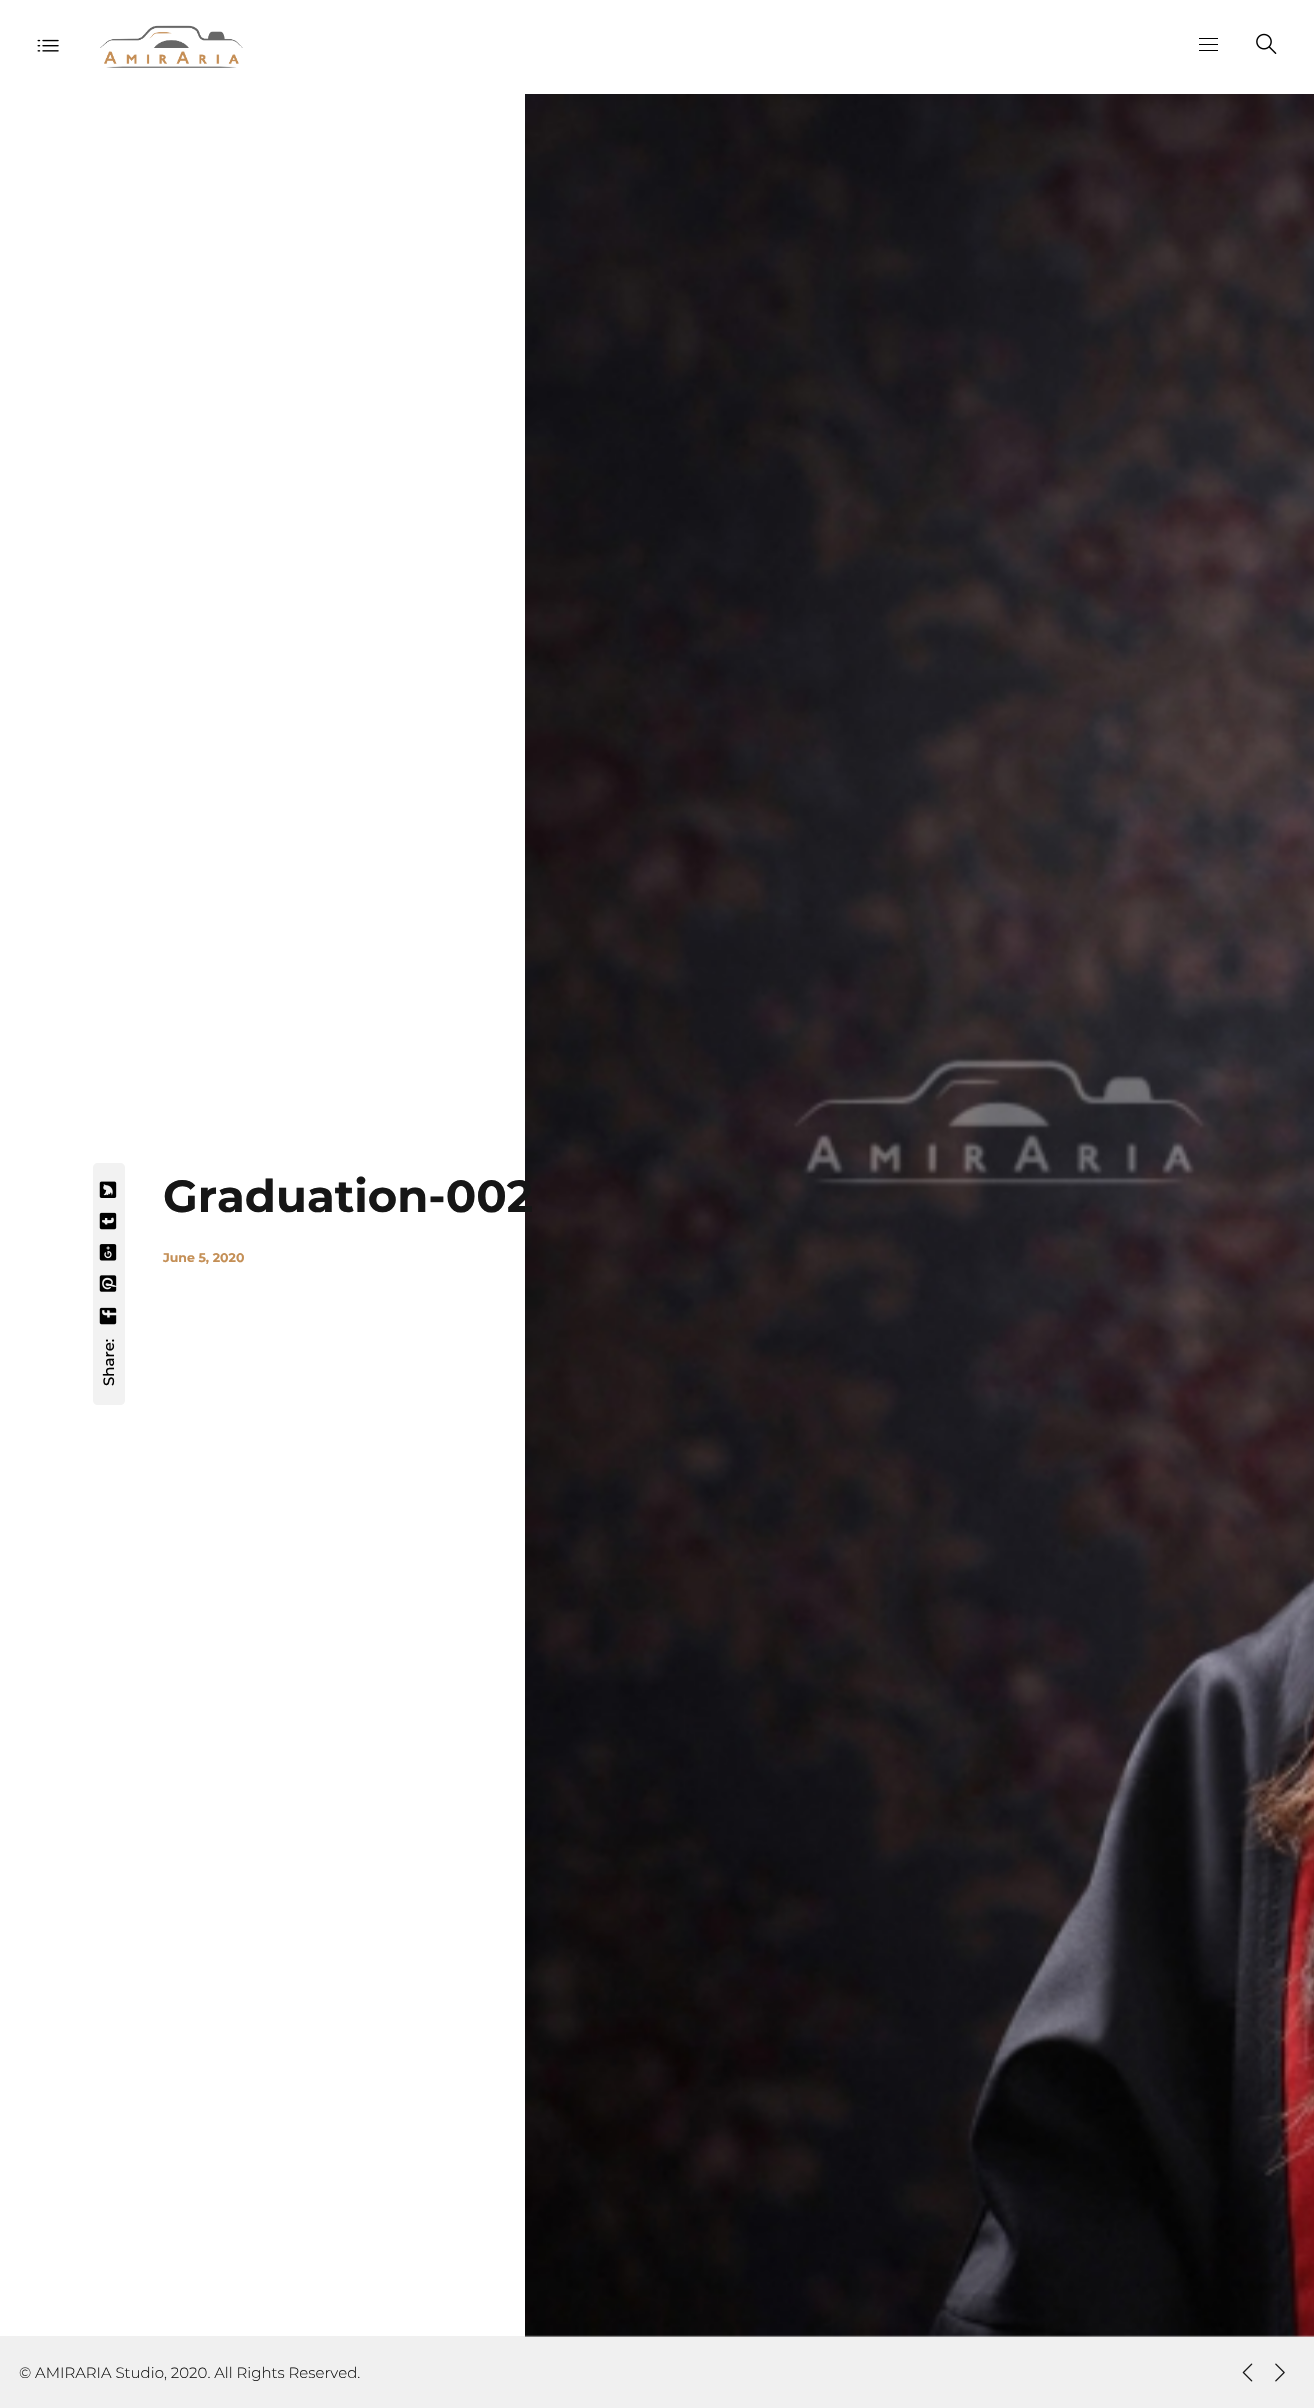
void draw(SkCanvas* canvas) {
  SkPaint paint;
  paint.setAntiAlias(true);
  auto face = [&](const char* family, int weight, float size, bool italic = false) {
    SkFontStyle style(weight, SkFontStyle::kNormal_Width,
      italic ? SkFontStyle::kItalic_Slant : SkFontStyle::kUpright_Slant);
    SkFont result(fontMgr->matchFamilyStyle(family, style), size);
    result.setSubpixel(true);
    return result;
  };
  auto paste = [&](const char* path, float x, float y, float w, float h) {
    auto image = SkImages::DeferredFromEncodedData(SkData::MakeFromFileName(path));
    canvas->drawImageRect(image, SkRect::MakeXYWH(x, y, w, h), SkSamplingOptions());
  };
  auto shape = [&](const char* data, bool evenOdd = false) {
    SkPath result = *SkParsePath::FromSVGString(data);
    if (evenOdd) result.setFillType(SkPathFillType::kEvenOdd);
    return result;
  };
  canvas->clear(0xffffffff);
  paste("img/1.png", 37, 39, 22, 13);
  paste("img/2.png", 100, 25, 143, 43);
  {
    const struct { float x, y, w, h; SkColor color; } items[] = {
      {1199, 38, 19, 1, 0xff000000},
      {1199, 44, 19, 1, 0xff000000},
      {1199, 50, 19, 1, 0xff000000},
    };
    for (auto [x, y, w, h, color] : items) {
      paint.setColor(color);
      canvas->drawRect(SkRect::MakeXYWH(x, y, w, h), paint);
    }
  }
  paste("img/3.png", 1256, 33, 21, 21);
  paint.setColor(0xfff2f2f2);
  canvas->drawPath(shape("M93 1400V1168C93 1165 95 1163 98 1163H120C123 1163 125 1165 125 1168V1400C125 1403 123 1405 120 1405H98C95 1405 93 1403 93 1400Z"), paint);
  paste("img/4.png", 99, 1181, 18, 17);
  paste("img/5.png", 99, 1212, 18, 18);
  paste("img/6.png", 99, 1244, 18, 17);
  paste("img/7.png", 99, 1275, 18, 17);
  paste("img/8.png", 99, 1307, 18, 18);
  paint.setColor(0xfff0f0f0);
  canvas->drawRect(SkRect::MakeXYWH(0, 2336, 1314, 72), paint);
  paste("img/9.png", 525, 94, 789, 2243);
  paste("img/10.png", 1242, 2363, 11, 19);
  paste("img/11.png", 1275, 2363, 10, 19);
  auto f0 = face("Montserrat", 700, 45);
  paint.setColor(0xff161616);
  canvas->drawString("Graduation-002", 163, 1212, f0, paint);
  auto f1 = face("Montserrat", 700, 12.5f);
  paint.setColor(0xffc48f56);
  canvas->drawString("June 5, 2020", 163, 1262, f1, paint);
  auto f2 = face("Montserrat", 500, 15);
  paint.setColor(0xff000000);
  canvas->save();
  canvas->rotate(-90, 114, 1386);
  canvas->drawString("Share:", 114, 1386, f2, paint);
  canvas->restore();
  auto f3 = face("Montserrat", 300, 15);
  paint.setColor(0xff161616);
  canvas->drawString("© AMIRARIA Studio, 2020. All Rights Reserved.", 19, 2378, f3, paint);
}
